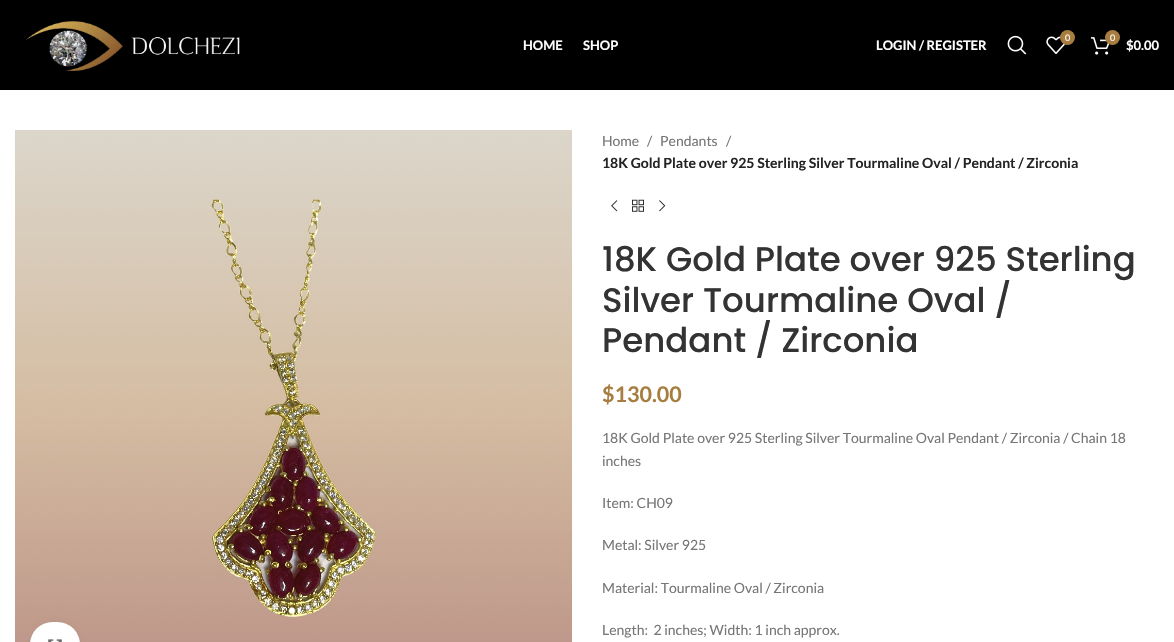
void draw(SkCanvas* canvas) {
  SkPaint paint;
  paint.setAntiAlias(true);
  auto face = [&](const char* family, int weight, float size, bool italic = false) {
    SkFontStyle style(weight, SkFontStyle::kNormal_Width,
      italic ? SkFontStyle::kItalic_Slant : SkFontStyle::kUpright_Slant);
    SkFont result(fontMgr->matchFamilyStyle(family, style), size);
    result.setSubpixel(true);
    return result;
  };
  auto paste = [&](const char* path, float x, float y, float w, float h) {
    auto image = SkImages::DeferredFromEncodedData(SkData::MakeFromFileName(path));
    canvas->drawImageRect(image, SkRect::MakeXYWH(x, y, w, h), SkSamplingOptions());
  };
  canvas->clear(0xffffffff);
  paint.setColor(0xff000000);
  canvas->drawRect(SkRect::MakeXYWH(0, 0, 1174, 90), paint);
  paste("img/1.png", 26, 21, 214, 50);
  paste("img/2.png", 1007, 35, 20, 20);
  paste("img/3.png", 1046, 36, 20, 18);
  paint.setColor(0xffa77d40);
  canvas->drawCircle(1067.5f, 37.5f, 7.5f, paint);
  paste("img/4.png", 1091, 37, 19, 18);
  canvas->drawCircle(1112.5f, 37.5f, 7.5f, paint);
  paste("img/5.png", 15, 130, 557, 512);
  paint.setColor(0x14000000);
  paint.setMaskFilter(SkMaskFilter::MakeBlur(kNormal_SkBlurStyle, 2.5f));
  canvas->drawRoundRect(SkRect::MakeXYWH(30, 622, 50, 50), 25, 25, paint);
  paint.setMaskFilter(nullptr);
  paint.setColor(0xffffffff);
  canvas->drawRoundRect(SkRect::MakeXYWH(30, 622, 50, 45), 25, 25, paint);
  paste("img/6.png", 48, 639, 14, 3);
  paste("img/7.png", 611, 200, 7, 12);
  paste("img/8.png", 632, 199, 12, 13);
  paste("img/9.png", 659, 200, 7, 12);
  auto f0 = face("Lato", 700, 13);
  {
    const struct { const char* s; float x, y; } items[] = {
      {"HOME", 523, 50},
      {"SHOP", 583, 50},
      {"LOGIN / REGISTER", 876, 50},
    };
    for (auto [s, x, y] : items) {
      canvas->drawString(s, x, y, f0, paint);
    }
  }
  auto f1 = face("Lato", 400, 9);
  canvas->drawString("0", 1065, 41, f1, paint);
  canvas->drawString("0", 1110, 41, f1, paint);
  canvas->drawString("$0.00", 1126, 50, f0, paint);
  auto f2 = face("Lato", 400, 14);
  paint.setColor(0xff767676);
  {
    const struct { const char* s; float x, y; } items[] = {
      {"Home", 602, 146},
      {"/", 647, 146},
      {"Pendants", 660, 146},
      {"/", 726, 146},
    };
    for (auto [s, x, y] : items) {
      canvas->drawString(s, x, y, f2, paint);
    }
  }
  auto f3 = face("Lato", 700, 14);
  paint.setColor(0xff242424);
  canvas->drawString("18K Gold Plate over 925 Sterling Silver Tourmaline Oval / Pendant / Zirconia", 602, 168, f3, paint);
  auto f4 = face("Poppins", 500, 34);
  paint.setColor(0xff333333);
  {
    const struct { const char* s; float x, y; } items[] = {
      {"18K Gold Plate over 925 Sterling", 602, 271},
      {"Silver Tourmaline Oval /", 602, 312},
      {"Pendant / Zirconia", 602, 352},
    };
    for (auto [s, x, y] : items) {
      canvas->drawString(s, x, y, f4, paint);
    }
  }
  auto f5 = face("Lato", 700, 21.5f);
  paint.setColor(0xffa77d40);
  canvas->drawString("$130.00", 602, 402, f5, paint);
  paint.setColor(0xff767676);
  {
    const struct { const char* s; float x, y; } items[] = {
      {"18K Gold Plate over 925 Sterling Silver Tourmaline Oval Pendant / Zirconia / Chain 18", 602, 443},
      {"inches", 602, 466},
      {"Item: CH09", 602, 508},
      {"Metal: Silver 925", 602, 550},
      {"Material: Tourmaline Oval / Zirconia", 602, 593},
      {"Length:  2 inches; Width: 1 inch approx.", 602, 635},
    };
    for (auto [s, x, y] : items) {
      canvas->drawString(s, x, y, f2, paint);
    }
  }
}
